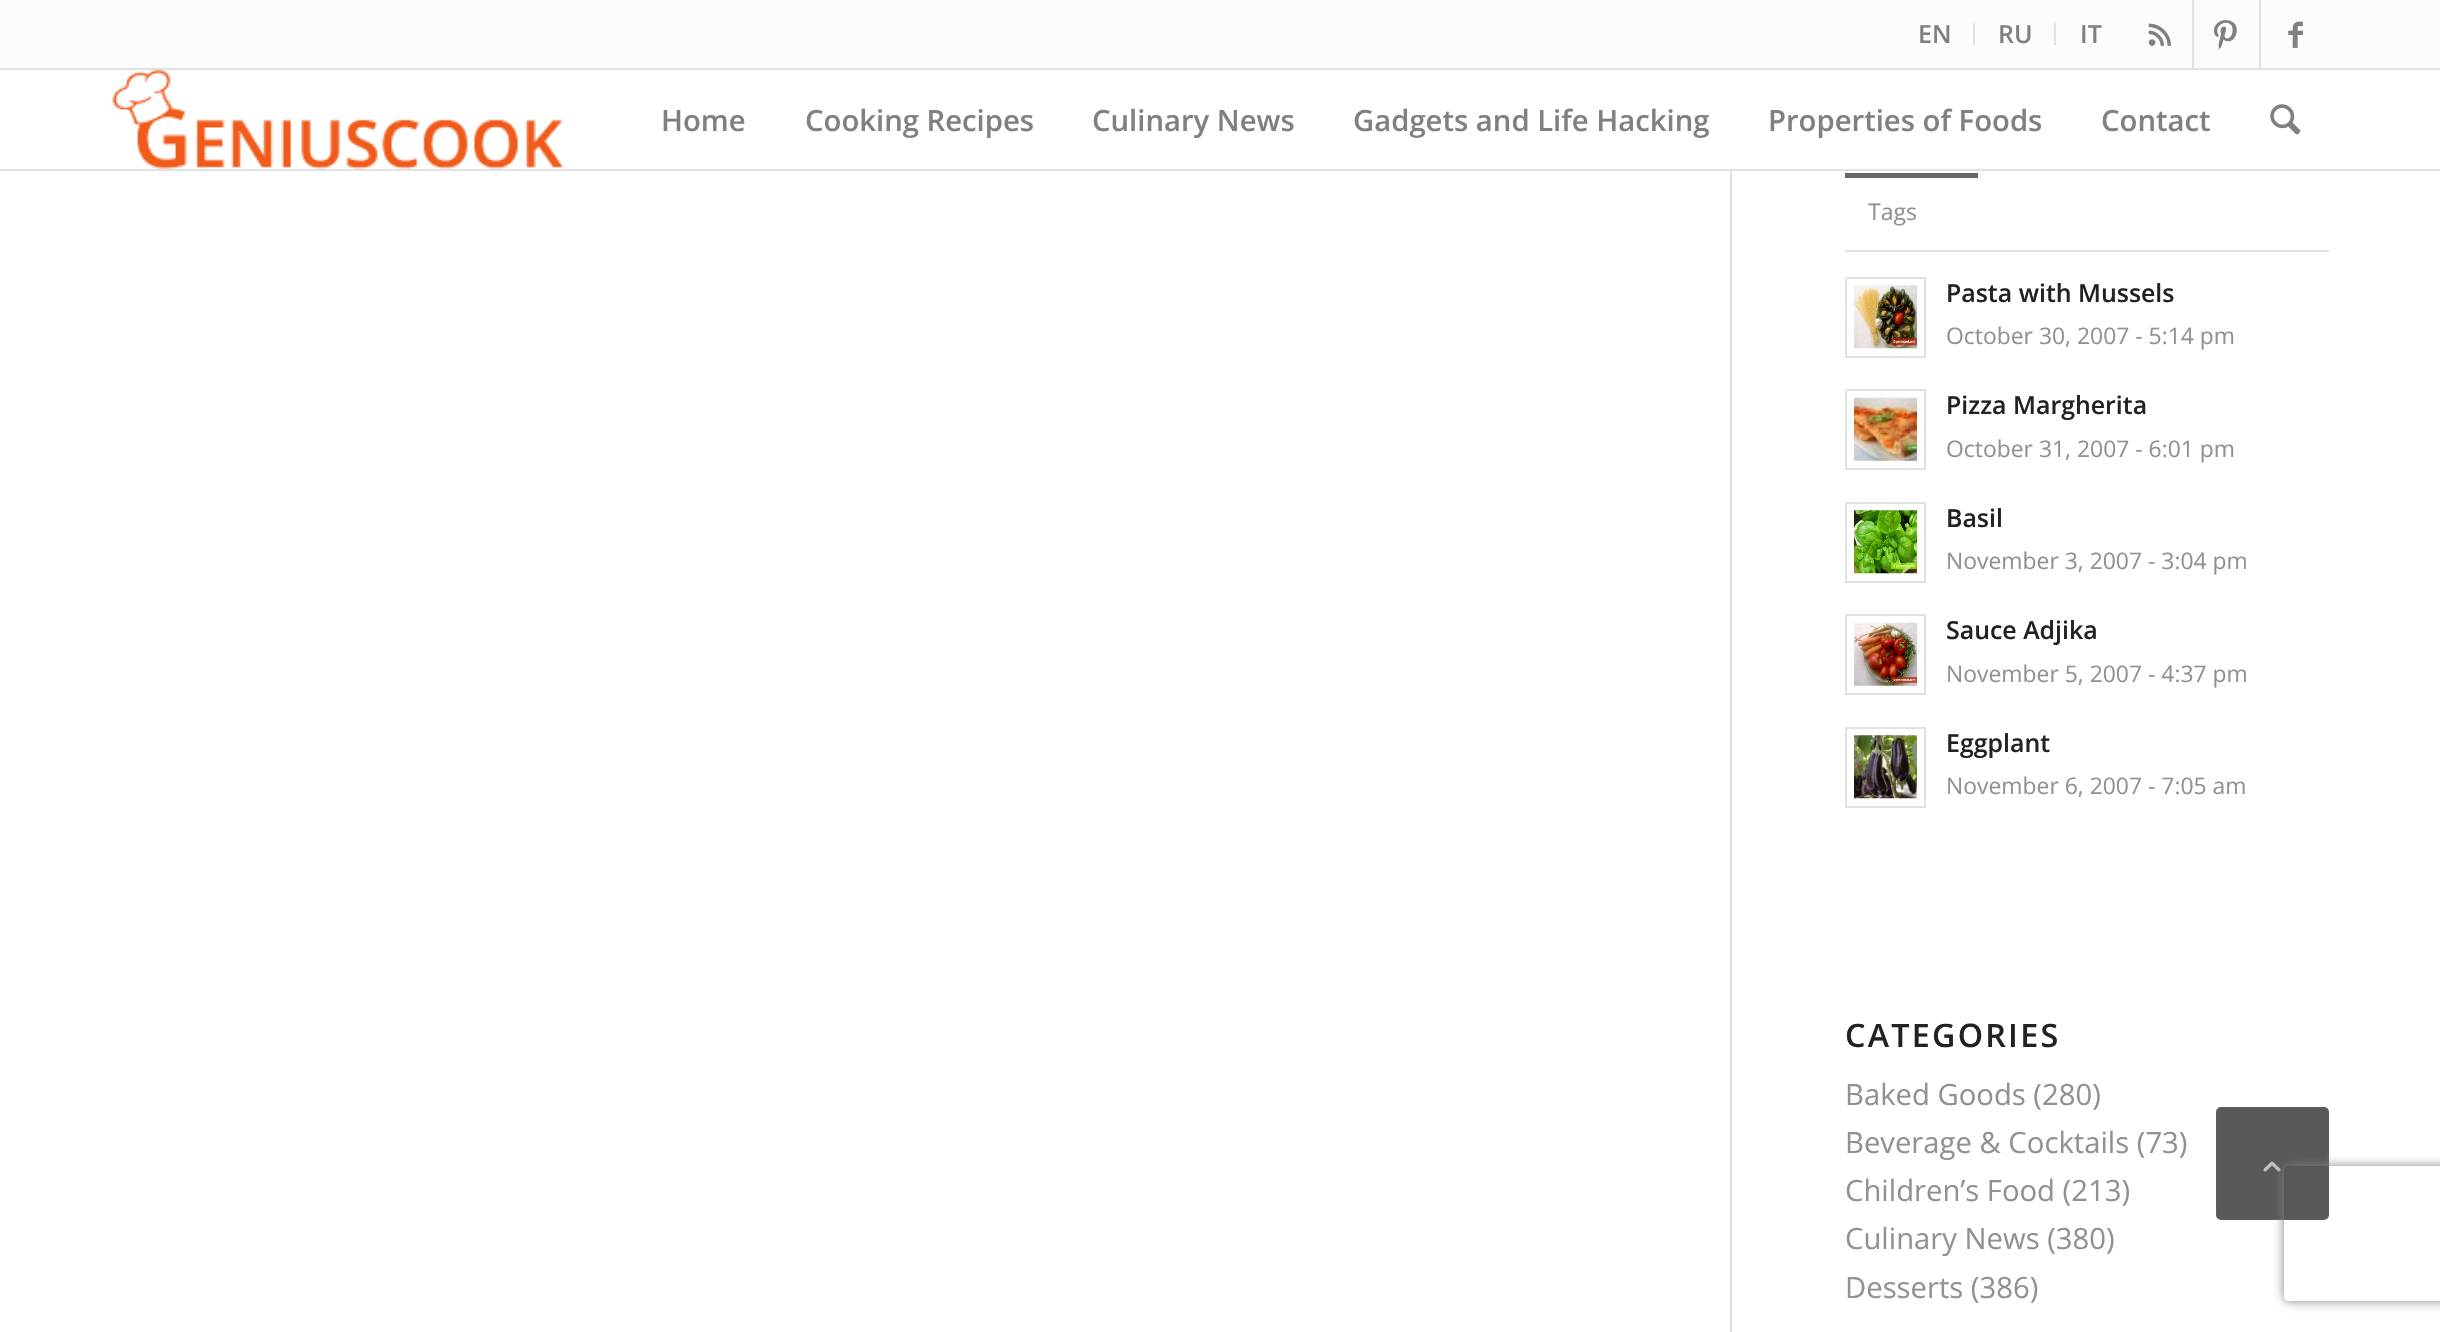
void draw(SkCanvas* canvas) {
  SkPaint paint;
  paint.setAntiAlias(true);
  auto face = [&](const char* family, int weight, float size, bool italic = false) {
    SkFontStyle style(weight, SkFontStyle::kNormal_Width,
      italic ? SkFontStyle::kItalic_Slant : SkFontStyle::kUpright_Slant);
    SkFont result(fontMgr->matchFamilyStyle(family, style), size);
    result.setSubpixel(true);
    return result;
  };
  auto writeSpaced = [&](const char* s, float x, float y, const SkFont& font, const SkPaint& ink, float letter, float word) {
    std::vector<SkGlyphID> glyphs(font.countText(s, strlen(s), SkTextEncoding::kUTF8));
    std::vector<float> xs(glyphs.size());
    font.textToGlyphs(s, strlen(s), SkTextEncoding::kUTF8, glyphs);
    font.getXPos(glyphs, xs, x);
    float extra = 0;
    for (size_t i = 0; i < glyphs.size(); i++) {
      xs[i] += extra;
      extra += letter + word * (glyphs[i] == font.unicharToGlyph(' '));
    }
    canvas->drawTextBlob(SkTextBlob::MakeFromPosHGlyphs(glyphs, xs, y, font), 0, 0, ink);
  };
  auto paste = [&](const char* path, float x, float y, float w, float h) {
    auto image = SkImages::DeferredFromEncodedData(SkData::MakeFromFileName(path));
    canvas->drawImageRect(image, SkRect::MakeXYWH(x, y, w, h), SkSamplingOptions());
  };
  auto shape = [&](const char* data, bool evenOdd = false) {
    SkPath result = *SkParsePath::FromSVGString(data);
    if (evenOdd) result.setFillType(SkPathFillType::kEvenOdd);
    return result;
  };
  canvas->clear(0xffffffff);
  {
    const struct { float x, y, w, h; SkColor color; } items[] = {
      {0, 0, 2440, 68, 0xfffcfcfc},
      {0, 68, 2440, 2, 0xffe1e1e1},
      {1973, 23, 2, 22, 0xffe1e1e1},
      {2054, 23, 2, 22, 0xffe1e1e1},
      {2192, 0, 2, 68, 0xffe1e1e1},
    };
    for (auto [x, y, w, h, color] : items) {
      paint.setColor(color);
      canvas->drawRect(SkRect::MakeXYWH(x, y, w, h), paint);
    }
  }
  paste("img/1.png", 2148, 23, 23, 23);
  canvas->drawRect(SkRect::MakeXYWH(2259, 0, 2, 68), paint);
  paste("img/2.png", 2214, 20, 23, 30);
  paste("img/3.png", 2288, 21, 15, 27);
  canvas->drawRect(SkRect::MakeXYWH(0, 169, 2440, 2), paint);
  paste("img/4.png", 112, 70, 451, 99);
  paste("img/5.png", 2270, 104, 31, 31);
  {
    const struct { float x, y, w, h; SkColor color; } items[] = {
      {1730, 171, 2, 1161, 0xffe1e1e1},
      {1845, 250, 484, 2, 0xffe1e1e1},
      {1845, 173, 133, 5, 0xff666666},
    };
    for (auto [x, y, w, h, color] : items) {
      paint.setColor(color);
      canvas->drawRect(SkRect::MakeXYWH(x, y, w, h), paint);
    }
  }
  paint.setStroke(true);
  paint.setStrokeWidth(2);
  paint.setColor(0xffe1e1e1);
  canvas->drawRect(SkRect::MakeXYWH(1846, 278, 79, 79), paint);
  paste("img/6.png", 1854, 285, 63, 64);
  canvas->drawRect(SkRect::MakeXYWH(1846, 390, 79, 79), paint);
  paste("img/7.png", 1854, 397, 63, 64);
  canvas->drawRect(SkRect::MakeXYWH(1846, 503, 79, 79), paint);
  paste("img/8.png", 1854, 510, 63, 64);
  canvas->drawRect(SkRect::MakeXYWH(1846, 615, 79, 79), paint);
  paste("img/9.png", 1854, 622, 63, 64);
  canvas->drawRect(SkRect::MakeXYWH(1846, 728, 79, 79), paint);
  paste("img/10.png", 1854, 735, 63, 64);
  paint.setStroke(false);
  paint.setColor(0xff585858);
  canvas->drawRoundRect(SkRect::MakeXYWH(2217, 1108, 111, 111), 4, 4, paint);
  paint.setStroke(true);
  paint.setColor(0xff5c5c5c);
  canvas->drawRoundRect(SkRect::MakeXYWH(2217, 1108, 111, 111), 4, 4, paint);
  paste("img/11.png", 2263, 1161, 18, 11);
  canvas->save();
  canvas->clipPath(shape("M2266 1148H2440V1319H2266ZM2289 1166H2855C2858 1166 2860 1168 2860 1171V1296C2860 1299 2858 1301 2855 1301H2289C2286 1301 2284 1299 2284 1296V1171C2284 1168 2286 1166 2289 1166Z", true), true);
  paint.setStroke(false);
  paint.setColor(0xff808080);
  paint.setMaskFilter(SkMaskFilter::MakeBlur(kNormal_SkBlurStyle, 5.5f));
  canvas->drawRoundRect(SkRect::MakeXYWH(2284, 1166, 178, 135), 5, 5, paint);
  paint.setMaskFilter(nullptr);
  canvas->restore();
  auto f0 = face("Open Sans", 600, 25);
  {
    const struct { const char* s; float x, y; } items[] = {
      {"EN", 1918, 43},
      {"RU", 1998, 43},
      {"IT", 2080, 43},
    };
    for (auto [s, x, y] : items) {
      canvas->drawString(s, x, y, f0, paint);
    }
  }
  auto f1 = face("Open Sans", 600, 29.25f);
  {
    const struct { const char* s; float x, y; } items[] = {
      {"Home", 661, 131},
      {"Cooking Recipes", 805, 131},
      {"Culinary News", 1092, 131},
      {"Gadgets and Life Hacking", 1353, 131},
      {"Properties of Foods", 1768, 131},
      {"Contact", 2101, 131},
    };
    for (auto [s, x, y] : items) {
      canvas->drawString(s, x, y, f1, paint);
    }
  }
  auto f2 = face("Open Sans", 400, 23);
  paint.setColor(0xff919191);
  canvas->drawString("Tags", 1868, 220, f2, paint);
  auto f3 = face("Open Sans", 600, 24.9f);
  paint.setColor(0xff222222);
  canvas->drawString("Pasta with Mussels", 1946, 302, f3, paint);
  auto f4 = face("Open Sans", 400, 22.9f);
  paint.setColor(0xff919191);
  canvas->drawString("October 30, 2007 - 5:14 pm", 1946, 344, f4, paint);
  paint.setColor(0xff222222);
  canvas->drawString("Pizza Margherita", 1946, 414, f3, paint);
  paint.setColor(0xff919191);
  canvas->drawString("October 31, 2007 - 6:01 pm", 1946, 457, f4, paint);
  paint.setColor(0xff222222);
  canvas->drawString("Basil", 1946, 527, f3, paint);
  paint.setColor(0xff919191);
  canvas->drawString("November 3, 2007 - 3:04 pm", 1946, 569, f4, paint);
  paint.setColor(0xff222222);
  canvas->drawString("Sauce Adjika", 1946, 639, f3, paint);
  paint.setColor(0xff919191);
  canvas->drawString("November 5, 2007 - 4:37 pm", 1946, 682, f4, paint);
  paint.setColor(0xff222222);
  canvas->drawString("Eggplant", 1946, 752, f3, paint);
  paint.setColor(0xff919191);
  canvas->drawString("November 6, 2007 - 7:05 am", 1946, 794, f4, paint);
  auto f5 = face("Open Sans", 600, 32.25f);
  paint.setColor(0xff222222);
  writeSpaced("CATEGORIES", 1845, 1047, f5, paint, 2.25f, 0);
  auto f6 = face("Open Sans", 400, 29.25f);
  paint.setColor(0xff919191);
  {
    const struct { const char* s; float x, y; } items[] = {
      {"Baked Goods (280)", 1845, 1105},
      {"Beverage & Cocktails (73)", 1845, 1153},
      {"Children’s Food (213)", 1845, 1201},
      {"Culinary News (380)", 1845, 1249},
      {"Desserts (386)", 1845, 1298},
    };
    for (auto [s, x, y] : items) {
      canvas->drawString(s, x, y, f6, paint);
    }
  }
}
